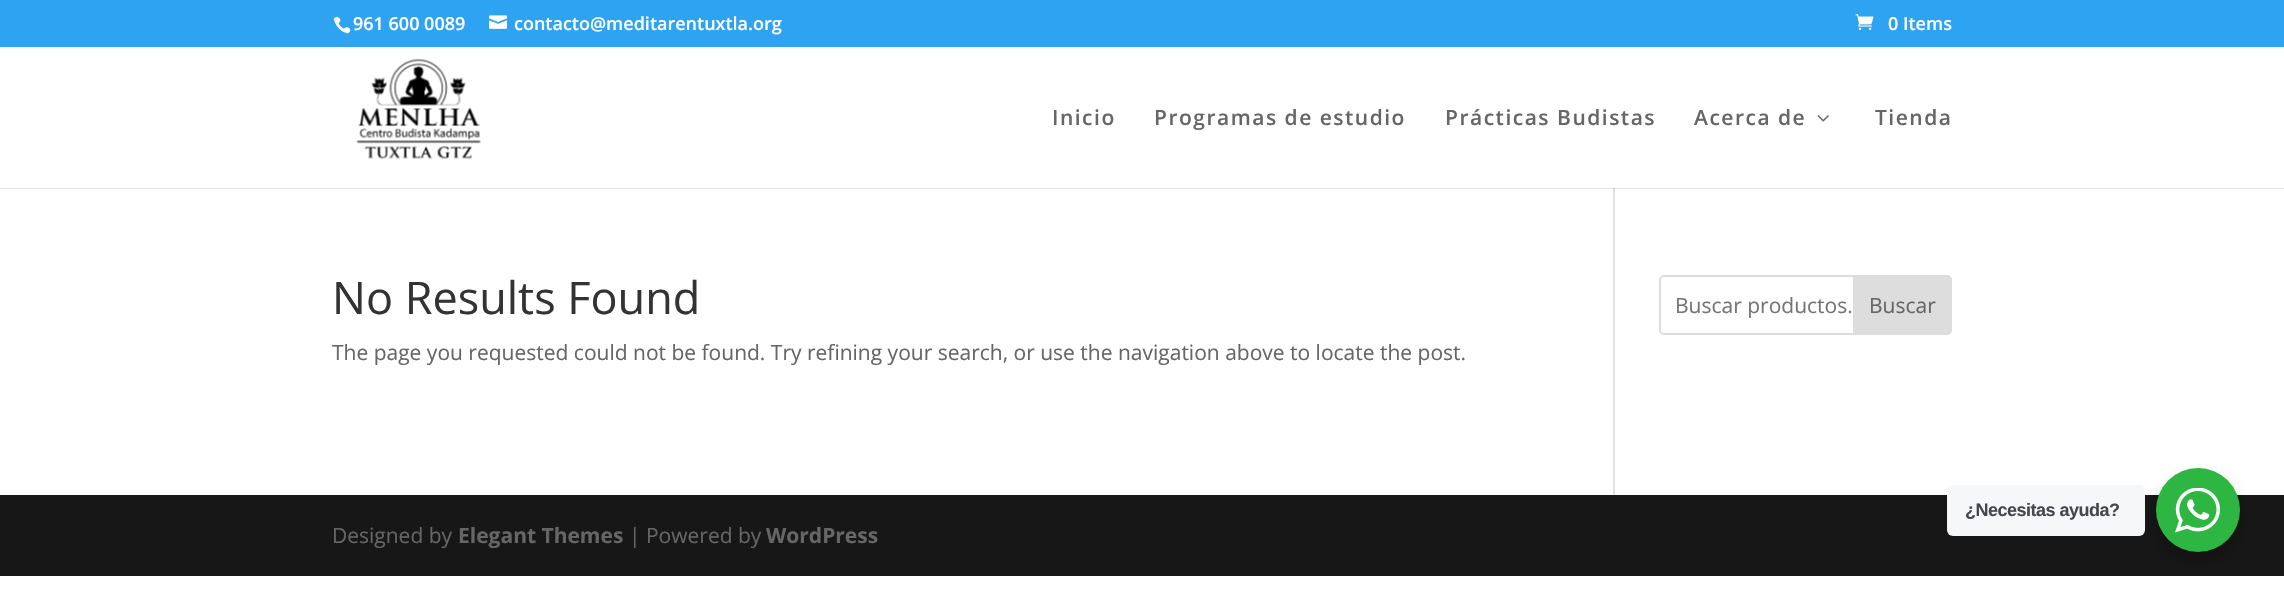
void draw(SkCanvas* canvas) {
  SkPaint paint;
  paint.setAntiAlias(true);
  auto face = [&](const char* family, int weight, float size, bool italic = false) {
    SkFontStyle style(weight, SkFontStyle::kNormal_Width,
      italic ? SkFontStyle::kItalic_Slant : SkFontStyle::kUpright_Slant);
    SkFont result(fontMgr->matchFamilyStyle(family, style), size);
    result.setSubpixel(true);
    return result;
  };
  auto writeSpaced = [&](const char* s, float x, float y, const SkFont& font, const SkPaint& ink, float letter, float word) {
    std::vector<SkGlyphID> glyphs(font.countText(s, strlen(s), SkTextEncoding::kUTF8));
    std::vector<float> xs(glyphs.size());
    font.textToGlyphs(s, strlen(s), SkTextEncoding::kUTF8, glyphs);
    font.getXPos(glyphs, xs, x);
    float extra = 0;
    for (size_t i = 0; i < glyphs.size(); i++) {
      xs[i] += extra;
      extra += letter + word * (glyphs[i] == font.unicharToGlyph(' '));
    }
    canvas->drawTextBlob(SkTextBlob::MakeFromPosHGlyphs(glyphs, xs, y, font), 0, 0, ink);
  };
  auto paste = [&](const char* path, float x, float y, float w, float h) {
    auto image = SkImages::DeferredFromEncodedData(SkData::MakeFromFileName(path));
    canvas->drawImageRect(image, SkRect::MakeXYWH(x, y, w, h), SkSamplingOptions());
  };
  auto shape = [&](const char* data, bool evenOdd = false) {
    SkPath result = *SkParsePath::FromSVGString(data);
    if (evenOdd) result.setFillType(SkPathFillType::kEvenOdd);
    return result;
  };
  canvas->clear(0xffffffff);
  paint.setColor(0xff2ea3f2);
  canvas->drawRect(SkRect::MakeXYWH(0, 0, 2284, 47), paint);
  paste("img/1.png", 333, 16, 18, 18);
  paste("img/2.png", 489, 15, 18, 14);
  paste("img/3.png", 1855, 14, 19, 16);
  paint.setColor(0xffe2e2e2);
  canvas->drawRect(SkRect::MakeXYWH(1613, 188, 2, 307), paint);
  paint.setColor(0x1a000000);
  canvas->drawPath(shape("M0 188V189H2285V48H2284V188Z"), paint);
  paste("img/4.png", 356, 58, 125, 101);
  paste("img/5.png", 1817, 115, 12, 7);
  paint.setStroke(true);
  paint.setStrokeWidth(2);
  paint.setColor(0xffdddddd);
  canvas->drawRoundRect(SkRect::MakeXYWH(1660, 276, 291, 58), 4, 4, paint);
  paint.setStroke(false);
  canvas->drawPath(shape("M1854 276H1947C1949 276 1951 278 1951 280V330C1951 332 1949 334 1947 334H1854Z"), paint);
  paint.setStroke(true);
  canvas->drawPath(shape("M1854 276H1947C1949 276 1951 278 1951 280V330C1951 332 1949 334 1947 334H1854Z"), paint);
  paint.setStroke(false);
  paint.setColor(0xff171717);
  canvas->drawRect(SkRect::MakeXYWH(0, 495, 2284, 81), paint);
  paint.setColor(0x24000000);
  paint.setMaskFilter(SkMaskFilter::MakeBlur(kNormal_SkBlurStyle, 6));
  canvas->drawRoundRect(SkRect::MakeXYWH(2153, 474, 90, 90), 45, 45, paint);
  paint.setMaskFilter(nullptr);
  paint.setColor(0xfff5f7f9);
  canvas->drawRoundRect(SkRect::MakeXYWH(1947, 485, 198, 51), 6, 6, paint);
  paint.setColor(0xff2db742);
  canvas->drawCircle(2198, 510, 42, paint);
  paste("img/6.png", 2175, 488, 45, 45);
  auto f0 = face("Open Sans", 600, 18);
  paint.setColor(0xffffffff);
  {
    const struct { const char* s; float x, y; } items[] = {
      {"961 600 0089", 353, 30},
      {"contacto@meditarentuxtla.org", 514, 30},
      {"0 Items", 1888, 30},
    };
    for (auto [s, x, y] : items) {
      canvas->drawString(s, x, y, f0, paint);
    }
  }
  auto f1 = face("Open Sans", 600, 21);
  paint.setColor(0xff666666);
  {
    const struct { const char* s; float x, y; } items[] = {
      {"Inicio", 1052, 125},
      {"Programas de estudio", 1154, 125},
      {"Prácticas Budistas", 1445, 125},
      {"Acerca de", 1694, 125},
      {"Tienda", 1875, 125},
    };
    for (auto [s, x, y] : items) {
      writeSpaced(s, x, y, f1, paint, 1.5f, 0);
    }
  }
  auto f2 = face("Open Sans", 400, 45);
  paint.setColor(0xff333333);
  canvas->drawString("No Results Found", 332, 314, f2, paint);
  auto f3 = face("Open Sans", 400, 21);
  paint.setColor(0xff666666);
  canvas->drawString("The page you requested could not be found. Try refining your search, or use the navigation above to locate the post.", 332, 360, f3, paint);
  paint.setColor(0xff757575);
  canvas->drawString("Buscar productos.", 1675, 313, f3, paint);
  paint.setColor(0xff666666);
  canvas->drawString("Buscar", 1869, 313, f3, paint);
  canvas->drawString("Designed by", 332, 543, f3, paint);
  auto f4 = face("Open Sans", 700, 21);
  canvas->drawString("Elegant Themes", 458, 543, f4, paint);
  canvas->drawString("| Powered by", 629, 543, f3, paint);
  canvas->drawString("WordPress", 766, 543, f4, paint);
  auto f5 = face("Liberation Sans", 700, 18);
  paint.setColor(0xff43474e);
  writeSpaced("¿Necesitas ayuda?", 1965, 516, f5, paint, -0.5f, 0);
}
